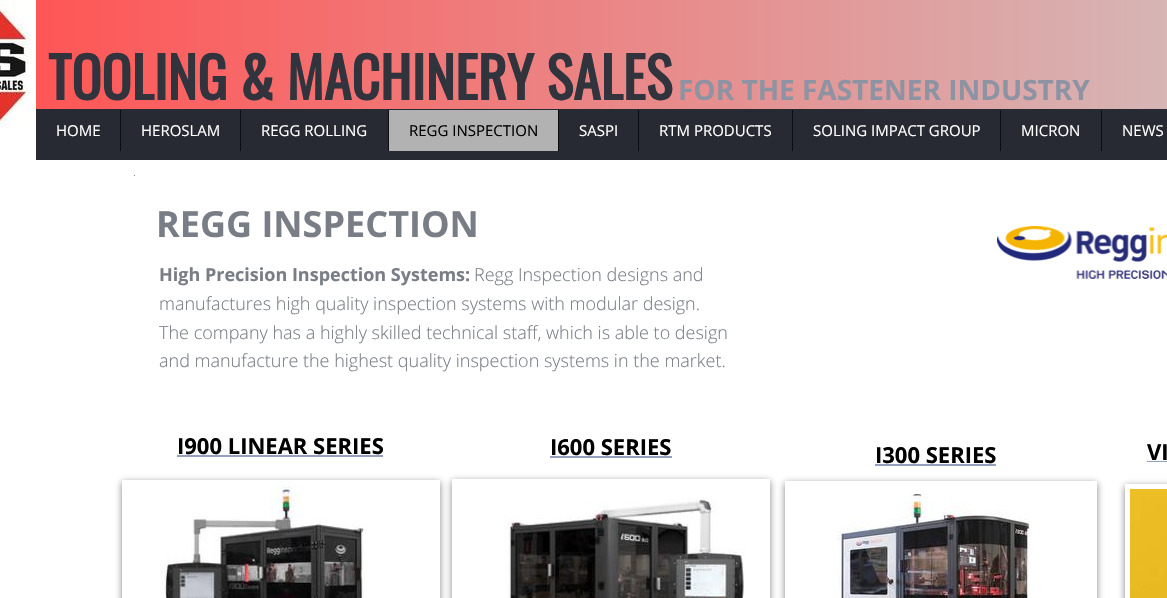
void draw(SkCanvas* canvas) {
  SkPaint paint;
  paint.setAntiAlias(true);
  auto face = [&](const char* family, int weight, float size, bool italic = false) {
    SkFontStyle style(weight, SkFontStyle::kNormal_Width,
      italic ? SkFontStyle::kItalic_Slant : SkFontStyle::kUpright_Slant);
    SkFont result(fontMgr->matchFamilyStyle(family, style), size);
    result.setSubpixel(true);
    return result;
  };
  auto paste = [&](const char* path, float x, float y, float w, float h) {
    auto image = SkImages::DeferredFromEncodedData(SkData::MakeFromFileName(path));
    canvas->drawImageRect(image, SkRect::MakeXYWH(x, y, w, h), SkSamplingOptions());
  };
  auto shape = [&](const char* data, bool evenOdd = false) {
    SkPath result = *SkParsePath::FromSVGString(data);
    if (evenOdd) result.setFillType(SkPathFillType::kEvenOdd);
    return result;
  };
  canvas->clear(0xffffffff);
  paste("img/1.png", 0, 0, 31, 128);
  {
    const SkColor colors[] = {0xffff5656, 0xffcccccc};
    const float stops[] = {0, 1};
    const SkPoint ends[] = {{36, 65}, {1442, 65}};
    paint.setShader(SkGradientShader::MakeLinear(ends, colors, stops, 2, SkTileMode::kClamp));
    paint.setAlpha(255);
  }
  canvas->drawRect(SkRect::MakeXYWH(36, 0, 1131, 109), paint);
  paint.setShader(nullptr);
  {
    const struct { float x, y, w, h; SkColor color; } items[] = {
      {36, 109, 1131, 51, 0xff282a33},
      {120, 110, 1, 41, 0xff0d0d10},
      {240, 110, 1, 41, 0xff0d0d10},
      {388, 110, 1, 41, 0xff0d0d10},
      {389, 110, 169, 41, 0xffb2b2b2},
      {558, 110, 1, 41, 0xff0d0d10},
      {638, 110, 1, 41, 0xff0d0d10},
      {792, 110, 1, 41, 0xff0d0d10},
      {1000, 110, 1, 41, 0xff0d0d10},
      {1101, 110, 1, 41, 0xff0d0d10},
      {134, 175, 1, 1, 0xffa38154},
    };
    for (auto [x, y, w, h, color] : items) {
      paint.setColor(color);
      canvas->drawRect(SkRect::MakeXYWH(x, y, w, h), paint);
    }
  }
  paste("img/2.png", 997, 226, 170, 53);
  {
    const struct { float x, y, w, h; SkColor color; } items[] = {
      {177, 455, 206, 2, 0xff94a0bd},
      {550, 456, 122, 2, 0xff94a0bd},
      {875, 464, 121, 2, 0xff94a0bd},
      {1147, 461, 20, 1, 0xff94a0bd},
    };
    for (auto [x, y, w, h, color] : items) {
      paint.setColor(color);
      canvas->drawRect(SkRect::MakeXYWH(x, y, w, h), paint);
    }
  }
  canvas->save();
  canvas->clipPath(shape("M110 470H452V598H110ZM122 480H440V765H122Z", true), true);
  paint.setColor(0x99323232);
  paint.setMaskFilter(SkMaskFilter::MakeBlur(kNormal_SkBlurStyle, 3.5f));
  canvas->drawRect(SkRect::MakeXYWH(122, 482, 318, 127), paint);
  paint.setMaskFilter(nullptr);
  canvas->restore();
  paste("img/3.png", 160, 485, 207, 113);
  canvas->save();
  canvas->clipPath(shape("M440 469H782V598H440ZM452 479H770V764H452Z", true), true);
  paint.setMaskFilter(SkMaskFilter::MakeBlur(kNormal_SkBlurStyle, 3.5f));
  canvas->drawRect(SkRect::MakeXYWH(452, 481, 318, 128), paint);
  paint.setMaskFilter(nullptr);
  canvas->restore();
  paste("img/4.png", 505, 498, 240, 100);
  canvas->save();
  canvas->clipPath(shape("M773 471H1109V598H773ZM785 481H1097V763H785Z", true), true);
  paint.setMaskFilter(SkMaskFilter::MakeBlur(kNormal_SkBlurStyle, 3.5f));
  canvas->drawRect(SkRect::MakeXYWH(785, 483, 312, 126), paint);
  paint.setMaskFilter(nullptr);
  canvas->restore();
  paste("img/5.png", 838, 494, 192, 104);
  canvas->save();
  canvas->clipPath(shape("M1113 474H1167V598H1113ZM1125 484H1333V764H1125Z", true), true);
  paint.setMaskFilter(SkMaskFilter::MakeBlur(kNormal_SkBlurStyle, 3.5f));
  canvas->drawRect(SkRect::MakeXYWH(1125, 486, 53, 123), paint);
  paint.setMaskFilter(nullptr);
  canvas->restore();
  paste("img/6.png", 1130, 489, 37, 109);
  auto f0 = face("Oswald", 700, 56);
  paint.setColor(0xff31333d);
  canvas->drawString("TOOLING & MACHINERY SALES", 48, 100, f0, paint);
  auto f1 = face("Open Sans", 700, 28);
  paint.setColor(0xff8d93a3);
  canvas->drawString("FOR THE FASTENER INDUSTRY", 678, 100, f1, paint);
  auto f2 = face("Open Sans", 400, 15);
  paint.setColor(0xffffffff);
  {
    const struct { const char* s; float x, y; } items[] = {
      {"HOME", 56, 136},
      {"HEROSLAM", 141, 136},
      {"REGG ROLLING", 261, 136},
    };
    for (auto [s, x, y] : items) {
      canvas->drawString(s, x, y, f2, paint);
    }
  }
  paint.setColor(0xff000000);
  canvas->drawString("REGG INSPECTION", 409, 136, f2, paint);
  paint.setColor(0xffffffff);
  {
    const struct { const char* s; float x, y; } items[] = {
      {"SASPI", 579, 136},
      {"RTM PRODUCTS", 659, 136},
      {"SOLING IMPACT GROUP", 813, 136},
      {"MICRON", 1021, 136},
      {"NEWS", 1122, 136},
    };
    for (auto [s, x, y] : items) {
      canvas->drawString(s, x, y, f2, paint);
    }
  }
  auto f3 = face("Open Sans", 700, 36);
  paint.setColor(0xff787d86);
  canvas->drawString("REGG INSPECTION", 156, 237, f3, paint);
  auto f4 = face("Open Sans", 700, 18);
  canvas->drawString("High Precision Inspection Systems:", 159, 281, f4, paint);
  auto f5 = face("Open Sans", 300, 18);
  {
    const struct { const char* s; float x, y; } items[] = {
      {"Regg Inspection designs and", 474, 281},
      {"manufactures high quality inspection systems with modular design.", 159, 310},
      {"The company has a highly skilled technical staff, which is able to design", 159, 339},
      {"and manufacture the highest quality inspection systems in the market.", 159, 367},
    };
    for (auto [s, x, y] : items) {
      canvas->drawString(s, x, y, f5, paint);
    }
  }
  auto f6 = face("Open Sans", 700, 22);
  paint.setColor(0xff000000);
  {
    const struct { const char* s; float x, y; } items[] = {
      {"I900 LINEAR SERIES", 177, 454},
      {"I600 SERIES", 550, 455},
      {"I300 SERIES", 875, 463},
      {"VI", 1147, 460},
    };
    for (auto [s, x, y] : items) {
      canvas->drawString(s, x, y, f6, paint);
    }
  }
}
